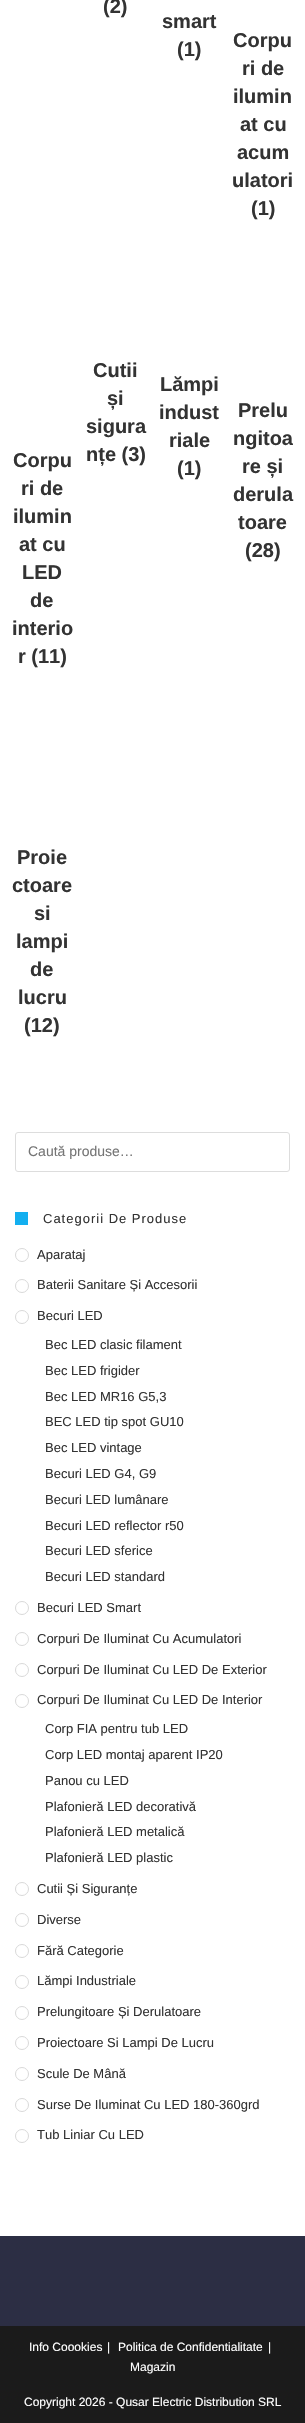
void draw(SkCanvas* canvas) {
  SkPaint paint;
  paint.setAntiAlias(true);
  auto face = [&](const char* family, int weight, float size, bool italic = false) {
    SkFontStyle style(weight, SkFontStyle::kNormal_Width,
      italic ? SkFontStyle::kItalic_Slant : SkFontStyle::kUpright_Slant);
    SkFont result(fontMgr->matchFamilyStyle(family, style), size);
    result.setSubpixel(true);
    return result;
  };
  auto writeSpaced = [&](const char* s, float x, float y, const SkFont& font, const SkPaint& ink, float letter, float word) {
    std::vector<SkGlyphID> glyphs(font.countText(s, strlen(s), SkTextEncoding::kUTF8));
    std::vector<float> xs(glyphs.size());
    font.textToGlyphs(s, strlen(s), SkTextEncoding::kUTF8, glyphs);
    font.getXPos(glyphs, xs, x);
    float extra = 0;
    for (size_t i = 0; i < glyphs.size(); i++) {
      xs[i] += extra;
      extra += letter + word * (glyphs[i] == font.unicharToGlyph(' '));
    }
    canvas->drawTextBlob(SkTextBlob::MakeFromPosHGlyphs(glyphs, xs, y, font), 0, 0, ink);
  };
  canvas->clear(0xffffffff);
  paint.setStroke(true);
  paint.setStrokeWidth(1);
  paint.setColor(0xffdddddd);
  canvas->drawRoundRect(SkRect::MakeXYWH(15.5f, 1132.5f, 274, 39), 2.5f, 2.5f, paint);
  paint.setStroke(false);
  paint.setColor(0xff13aff0);
  canvas->drawRect(SkRect::MakeXYWH(15, 1212, 13, 13), paint);
  paint.setStroke(true);
  paint.setColor(0xffd9d9d9);
  canvas->drawCircle(22, 1255, 6.5f, paint);
  canvas->drawCircle(22, 1286, 6.5f, paint);
  canvas->drawCircle(22, 1317, 6.5f, paint);
  canvas->drawCircle(22, 1608, 6.5f, paint);
  canvas->drawCircle(22, 1639, 6.5f, paint);
  canvas->drawCircle(22, 1670, 6.5f, paint);
  canvas->drawCircle(22, 1701, 6.5f, paint);
  canvas->drawCircle(22, 1889, 6.5f, paint);
  canvas->drawCircle(22, 1920, 6.5f, paint);
  canvas->drawCircle(22, 1951, 6.5f, paint);
  canvas->drawCircle(22, 1982, 6.5f, paint);
  canvas->drawCircle(22, 2013, 6.5f, paint);
  canvas->drawCircle(22, 2043, 6.5f, paint);
  canvas->drawCircle(22, 2074, 6.5f, paint);
  canvas->drawCircle(22, 2105, 6.5f, paint);
  canvas->drawCircle(22, 2136, 6.5f, paint);
  paint.setStroke(false);
  paint.setColor(0xff2c2e44);
  canvas->drawRect(SkRect::MakeXYWH(0, 2236, 305, 90), paint);
  paint.setColor(0xff1b1b1b);
  canvas->drawRect(SkRect::MakeXYWH(0, 2326, 305, 97), paint);
  auto f0 = face("Liberation Sans", 700, 20);
  paint.setColor(0xff333333);
  {
    const struct { const char* s; float x, y; } items[] = {
      {"(2)", 103, 13},
      {"smart", 162, 28},
      {"(1)", 177, 56},
      {"Corpu", 233, 47},
      {"ri de", 242, 75},
      {"ilumin", 233, 103},
      {"at cu", 240, 131},
      {"acum", 237, 159},
      {"ulatori", 232, 187},
      {"(1)", 251, 215},
      {"Corpu", 13, 467},
      {"ri de", 21, 495},
      {"ilumin", 13, 523},
      {"at cu", 19, 551},
      {"LED", 22, 579},
      {"de", 30, 607},
      {"interio", 12, 635},
      {"r (11)", 18, 663},
      {"Cutii", 93, 377},
      {"și", 107, 405},
      {"sigura", 86, 433},
      {"nțe (3)", 86, 461},
      {"Lămpi", 160, 391},
      {"indust", 159, 419},
      {"riale", 169, 447},
      {"(1)", 177, 475},
      {"Prelu", 238, 417},
      {"ngitoa", 233, 445},
      {"re și", 242, 473},
      {"derula", 233, 501},
      {"toare", 238, 529},
      {"(28)", 245, 557},
      {"Proie", 17, 864},
      {"ctoare", 12, 892},
      {"si", 34, 920},
      {"lampi", 16, 948},
      {"de", 30, 976},
      {"lucru", 18, 1004},
      {"(12)", 24, 1032},
    };
    for (auto [s, x, y] : items) {
      canvas->drawString(s, x, y, f0, paint);
    }
  }
  auto f1 = face("Liberation Sans", 400, 14);
  paint.setColor(0xff757575);
  canvas->drawString("Caută produse…", 28, 1156, f1, paint);
  auto f2 = face("Liberation Sans", 400, 13);
  paint.setColor(0xff333333);
  writeSpaced("Categorii De Produse", 43, 1223, f2, paint, 1, 0);
  {
    const struct { const char* s; float x, y; } items[] = {
      {"Aparataj", 37, 1259},
      {"Baterii Sanitare Și Accesorii", 37, 1289},
      {"Becuri LED", 37, 1320},
      {"Bec LED clasic filament", 45, 1349},
      {"Bec LED frigider", 45, 1375},
      {"Bec LED MR16 G5,3", 45, 1401},
      {"BEC LED tip spot GU10", 45, 1426},
      {"Bec LED vintage", 45, 1452},
      {"Becuri LED G4, G9", 45, 1478},
      {"Becuri LED lumânare", 45, 1504},
      {"Becuri LED reflector r50", 45, 1530},
      {"Becuri LED sferice", 45, 1555},
      {"Becuri LED standard", 45, 1581},
      {"Becuri LED Smart", 37, 1612},
      {"Corpuri De Iluminat Cu Acumulatori", 37, 1643},
      {"Corpuri De Iluminat Cu LED De Exterior", 37, 1674},
      {"Corpuri De Iluminat Cu LED De Interior", 37, 1704},
      {"Corp FIA pentru tub LED", 45, 1733},
      {"Corp LED montaj aparent IP20", 45, 1759},
      {"Panou cu LED", 45, 1785},
      {"Plafonieră LED decorativă", 45, 1811},
      {"Plafonieră LED metalică", 45, 1836},
      {"Plafonieră LED plastic", 45, 1862},
      {"Cutii Și Siguranțe", 37, 1893},
      {"Diverse", 37, 1924},
      {"Fără Categorie", 37, 1955},
      {"Lămpi Industriale", 37, 1985},
      {"Prelungitoare Și Derulatoare", 37, 2016},
      {"Proiectoare Si Lampi De Lucru", 37, 2047},
      {"Scule De Mână", 37, 2078},
      {"Surse De Iluminat Cu LED 180-360grd", 37, 2109},
      {"Tub Liniar Cu LED", 37, 2139},
    };
    for (auto [s, x, y] : items) {
      canvas->drawString(s, x, y, f2, paint);
    }
  }
  auto f3 = face("Liberation Sans", 400, 12);
  paint.setColor(0xffffffff);
  {
    const struct { const char* s; float x, y; } items[] = {
      {"Info Coookies", 29, 2351},
      {"|", 107, 2351},
      {"Politica de Confidentialitate", 118, 2351},
      {"|", 268, 2351},
      {"Magazin", 130, 2371},
      {"Copyright 2026 - Qusar Electric Distribution SRL", 24, 2406},
    };
    for (auto [s, x, y] : items) {
      canvas->drawString(s, x, y, f3, paint);
    }
  }
}
